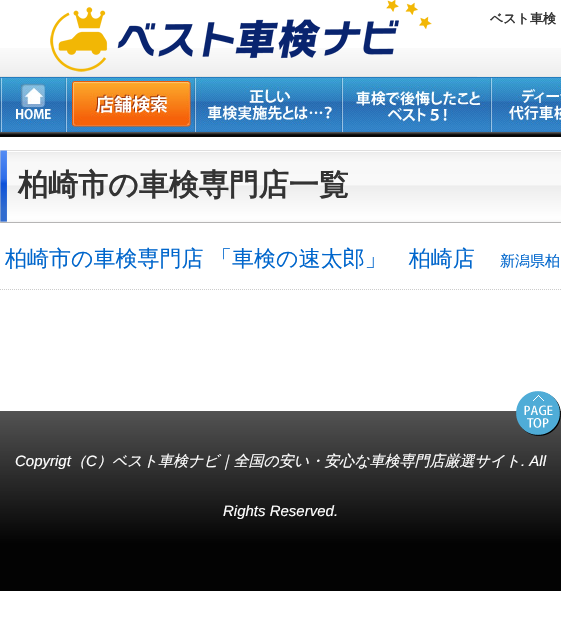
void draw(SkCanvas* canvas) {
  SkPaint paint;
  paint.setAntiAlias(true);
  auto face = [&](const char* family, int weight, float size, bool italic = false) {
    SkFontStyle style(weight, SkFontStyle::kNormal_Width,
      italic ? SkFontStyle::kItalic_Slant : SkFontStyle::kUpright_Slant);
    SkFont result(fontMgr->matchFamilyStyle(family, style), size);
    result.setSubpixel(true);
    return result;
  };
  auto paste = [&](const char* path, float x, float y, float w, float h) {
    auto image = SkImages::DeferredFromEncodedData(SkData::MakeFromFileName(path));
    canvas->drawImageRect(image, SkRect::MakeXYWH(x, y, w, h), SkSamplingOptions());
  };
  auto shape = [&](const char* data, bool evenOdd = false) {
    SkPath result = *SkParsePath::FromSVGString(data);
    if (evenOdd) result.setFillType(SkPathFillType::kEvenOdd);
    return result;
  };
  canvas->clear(0xffffffff);
  paste("img/1.png", 0, 48, 561, 89);
  paste("img/2.png", 0, 0, 477, 77);
  paste("img/3.png", 0, 77, 66, 55);
  paste("img/4.png", 66, 77, 129, 55);
  paste("img/5.png", 195, 77, 147, 55);
  paste("img/6.png", 342, 77, 149, 55);
  paste("img/7.png", 491, 77, 70, 55);
  paste("img/8.png", 0, 150, 561, 73);
  paint.setStroke(true);
  paint.setStrokeWidth(1);
  paint.setColor(0xffcccccc);
  paint.setPathEffect(SkDashPathEffect::Make({{1, 1}}, 0));
  canvas->drawPath(shape("M0 289.5H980"), paint);
  paint.setPathEffect(nullptr);
  paste("img/9.png", 0, 411, 561, 180);
  paste("img/10.png", 516, 391, 45, 45);
  auto f0 = face("WenQuanYi Zen Hei", 700, 13);
  paint.setStroke(false);
  paint.setColor(0xff333333);
  canvas->drawString("ベスト車検", 490, 23, f0, paint);
  auto f1 = face("WenQuanYi Zen Hei", 700, 30);
  canvas->drawString("柏崎市の車検専門店一覧", 18, 195, f1, paint);
  auto f2 = face("WenQuanYi Zen Hei", 500, 22);
  paint.setColor(0xff0066cc);
  canvas->drawString("柏崎市の車検専門店 「車検の速太郎」　柏崎店", 5, 266, f2, paint);
  auto f3 = face("WenQuanYi Zen Hei", 500, 15);
  canvas->drawString("新潟県柏", 500, 266, f3, paint);
  auto f4 = face("Liberation Sans", 400, 15, true);
  paint.setColor(0xffffffff);
  canvas->drawString("Copyrigt", 15, 466, f4, paint);
  auto f5 = face("WenQuanYi Zen Hei", 500, 15, true);
  canvas->drawString("（", 71, 466, f5, paint);
  canvas->drawString("C", 86, 466, f4, paint);
  canvas->drawString("）ベスト車検ナビ｜全国の安い・安心な車検専門店厳選サイト", 97, 466, f5, paint);
  canvas->drawString(". All", 521, 466, f4, paint);
  canvas->drawString("Rights Reserved.", 223, 516, f4, paint);
}
